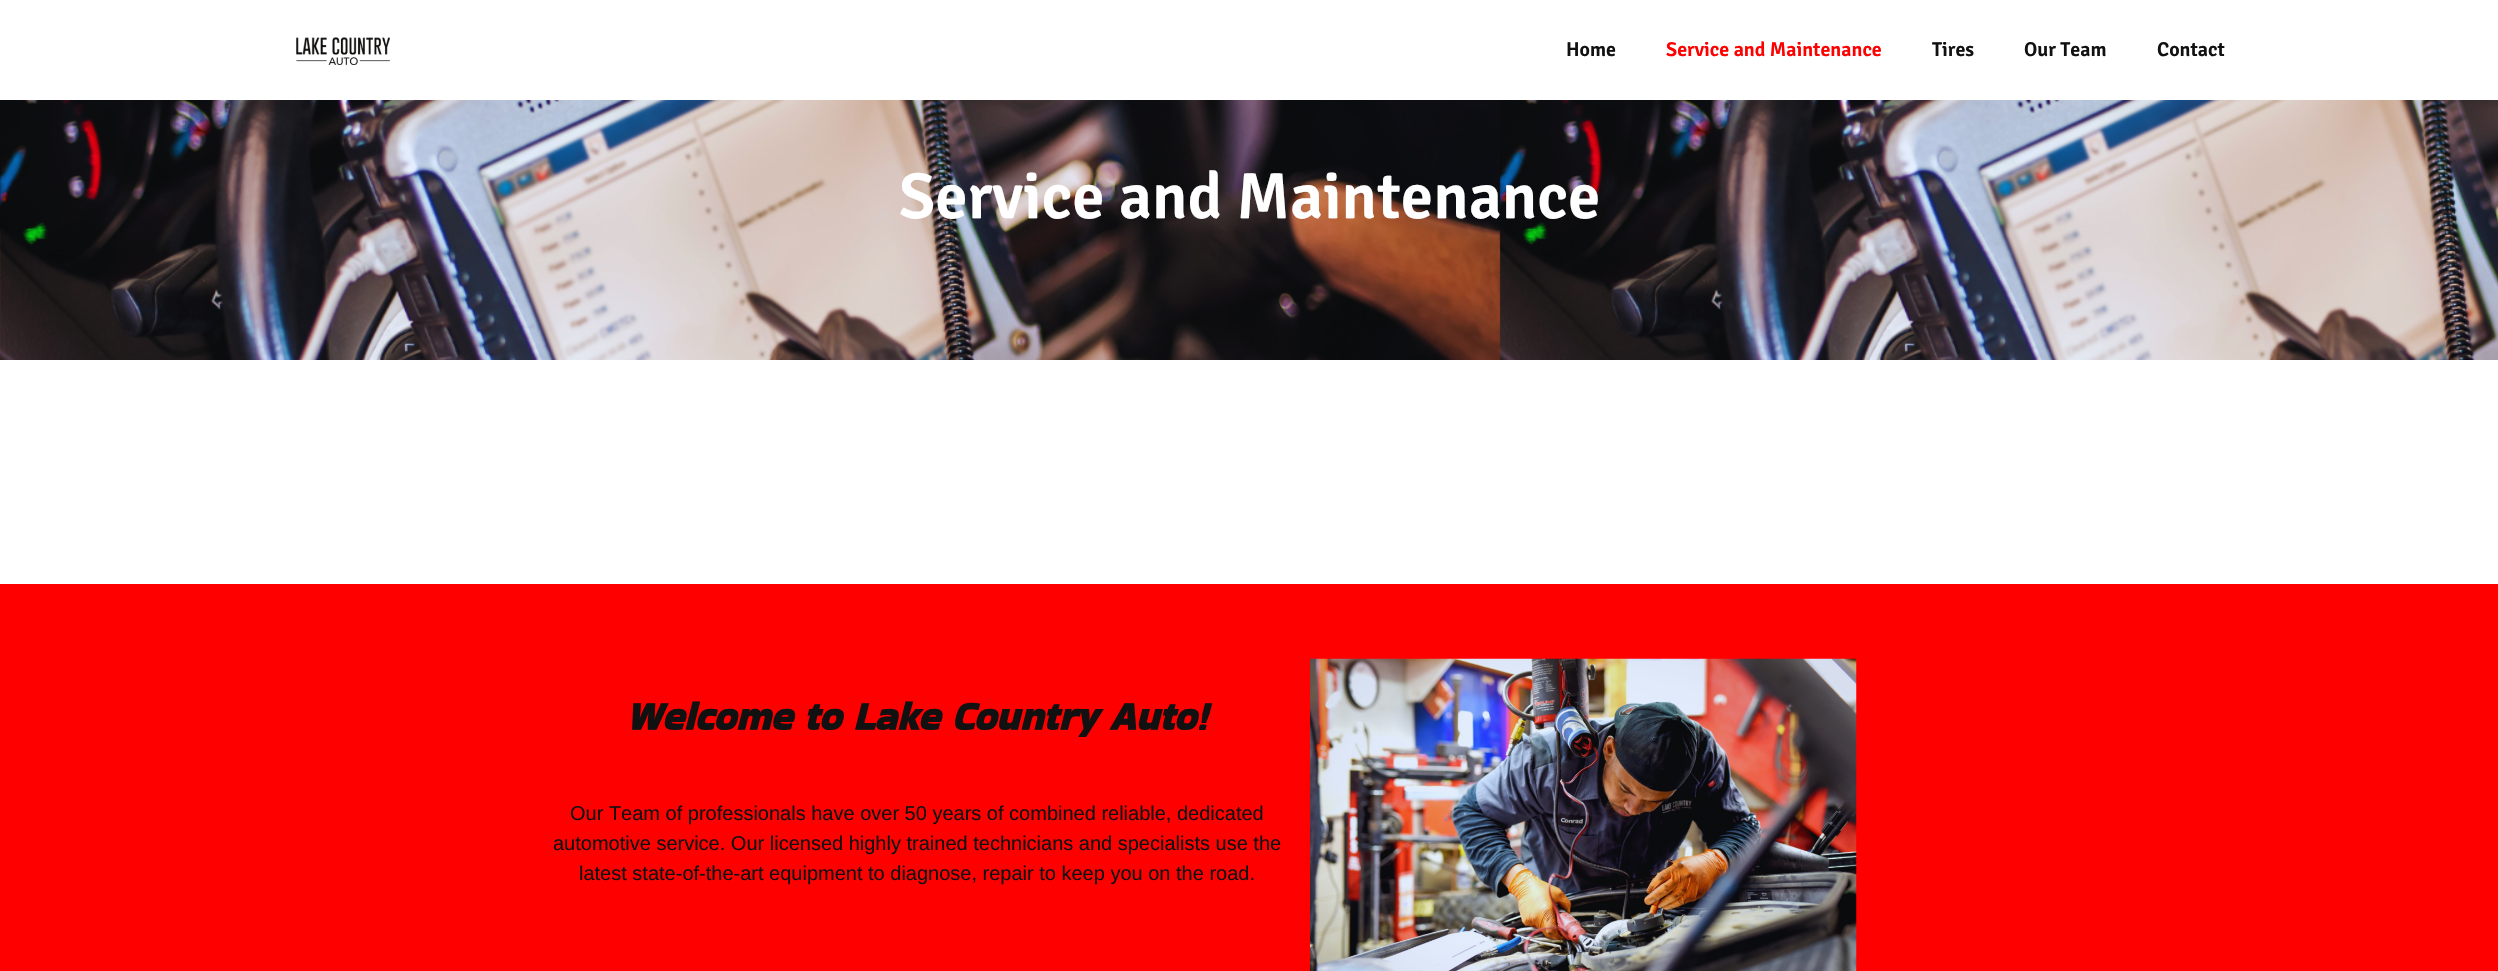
void draw(SkCanvas* canvas) {
  SkPaint paint;
  paint.setAntiAlias(true);
  auto face = [&](const char* family, int weight, float size, bool italic = false) {
    SkFontStyle style(weight, SkFontStyle::kNormal_Width,
      italic ? SkFontStyle::kItalic_Slant : SkFontStyle::kUpright_Slant);
    SkFont result(fontMgr->matchFamilyStyle(family, style), size);
    result.setSubpixel(true);
    return result;
  };
  auto paste = [&](const char* path, float x, float y, float w, float h) {
    auto image = SkImages::DeferredFromEncodedData(SkData::MakeFromFileName(path));
    canvas->drawImageRect(image, SkRect::MakeXYWH(x, y, w, h), SkSamplingOptions());
  };
  canvas->clear(0xffffffff);
  paste("img/1.png", 296, 37, 94, 28);
  paste("img/2.png", 0, 100, 2498, 260);
  paint.setColor(0xffff0000);
  canvas->drawRect(SkRect::MakeXYWH(0, 584, 2498, 387), paint);
  paste("img/3.png", 1310, 658, 547, 313);
  auto f0 = face("Signika", 600, 20);
  paint.setColor(0xff111111);
  canvas->drawString("Home", 1566, 56, f0, paint);
  paint.setColor(0xffff0000);
  canvas->drawString("Service and Maintenance", 1666, 56, f0, paint);
  paint.setColor(0xff111111);
  {
    const struct { const char* s; float x, y; } items[] = {
      {"Tires", 1932, 56},
      {"Our Team", 2024, 56},
      {"Contact", 2157, 56},
    };
    for (auto [s, x, y] : items) {
      canvas->drawString(s, x, y, f0, paint);
    }
  }
  auto f1 = face("Signika", 600, 65);
  paint.setColor(0xffffffff);
  canvas->drawString("Service and Maintenance", 899, 218, f1, paint);
  auto f2 = face("Bakbak One", 700, 40, true);
  paint.setColor(0xff111111);
  canvas->drawString("Welcome to Lake Country Auto!", 626, 730, f2, paint);
  auto f3 = face("Liberation Sans", 400, 20);
  {
    const struct { const char* s; float x, y; } items[] = {
      {"Our Team of professionals have over 50 years of combined reliable, dedicated", 570, 820},
      {"automotive service. Our licensed highly trained technicians and specialists use the", 553, 850},
      {"latest state-of-the-art equipment to diagnose, repair to keep you on the road.", 579, 880},
    };
    for (auto [s, x, y] : items) {
      canvas->drawString(s, x, y, f3, paint);
    }
  }
}
